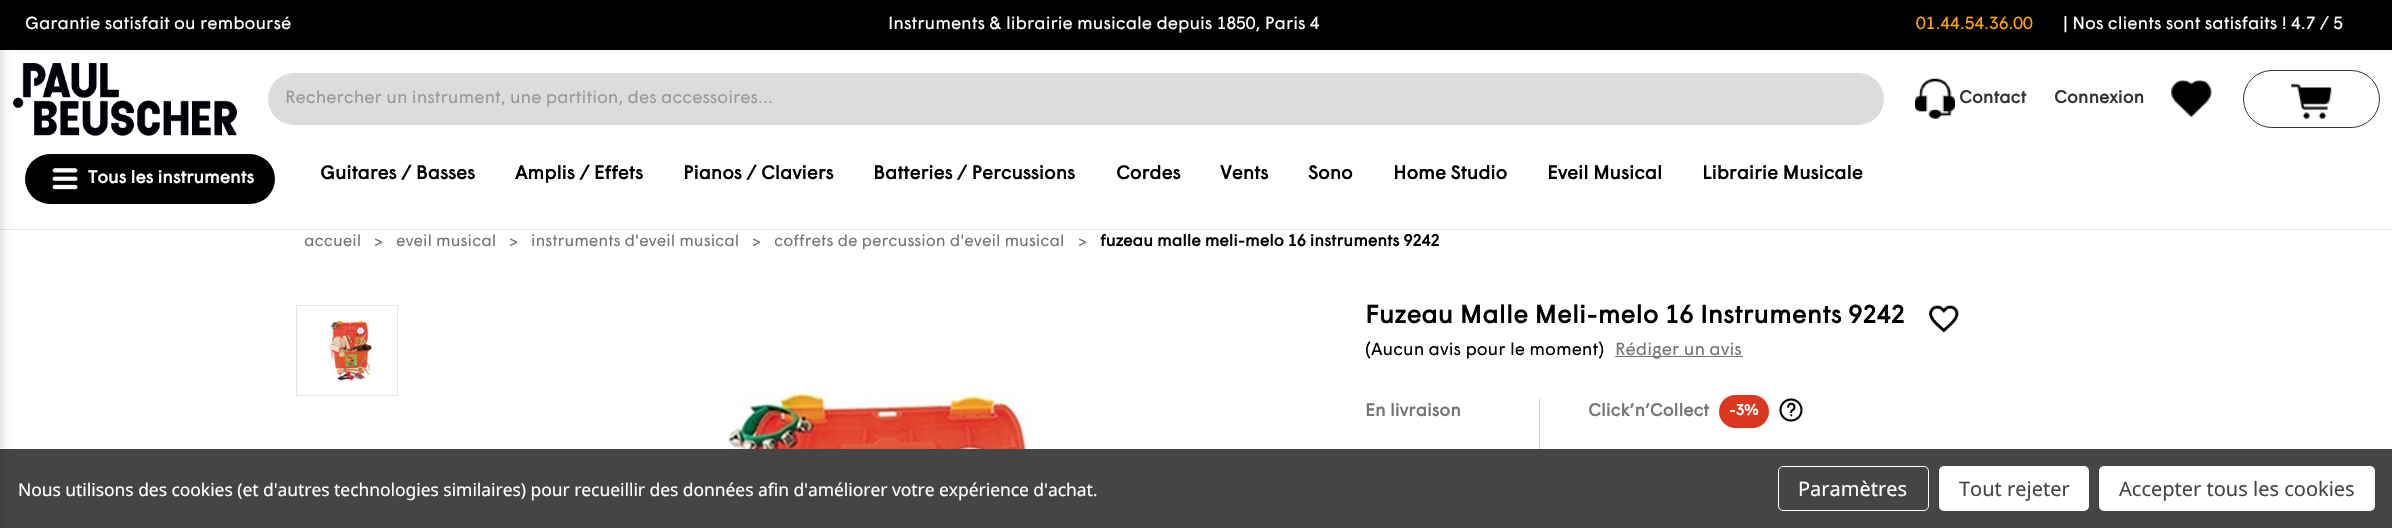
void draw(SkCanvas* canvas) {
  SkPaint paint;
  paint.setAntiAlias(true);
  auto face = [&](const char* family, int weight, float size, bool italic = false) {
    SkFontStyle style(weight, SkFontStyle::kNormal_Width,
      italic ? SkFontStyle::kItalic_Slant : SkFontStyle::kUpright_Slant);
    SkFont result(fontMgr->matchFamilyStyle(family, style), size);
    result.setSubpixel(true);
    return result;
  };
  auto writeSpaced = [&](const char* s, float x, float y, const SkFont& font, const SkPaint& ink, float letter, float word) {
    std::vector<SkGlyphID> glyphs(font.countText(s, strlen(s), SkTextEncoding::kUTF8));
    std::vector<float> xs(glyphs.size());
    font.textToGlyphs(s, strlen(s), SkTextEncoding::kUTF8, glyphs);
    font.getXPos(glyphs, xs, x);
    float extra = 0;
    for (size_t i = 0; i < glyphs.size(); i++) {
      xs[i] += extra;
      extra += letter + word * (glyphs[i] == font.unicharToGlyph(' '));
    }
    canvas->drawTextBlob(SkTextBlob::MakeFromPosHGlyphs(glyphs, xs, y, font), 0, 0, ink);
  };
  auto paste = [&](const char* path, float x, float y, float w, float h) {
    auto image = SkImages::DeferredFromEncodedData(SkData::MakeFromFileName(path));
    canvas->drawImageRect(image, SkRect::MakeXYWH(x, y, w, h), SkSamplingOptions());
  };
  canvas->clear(0xffffffff);
  paint.setColor(0xff000000);
  canvas->drawRect(SkRect::MakeXYWH(0, 0, 2392, 50), paint);
  paint.setColor(0xffe5e5e5);
  canvas->drawRect(SkRect::MakeXYWH(0, 229, 2392, 1), paint);
  paste("img/1.png", 13, 63, 224, 73);
  paint.setColor(0xffcccccc);
  canvas->drawRect(SkRect::MakeXYWH(1539, 399, 1, 56), paint);
  paint.setColor(0xff454545);
  canvas->drawRect(SkRect::MakeXYWH(0, 449, 2392, 79), paint);
  paint.setColor(0x33000000);
  paint.setMaskFilter(SkMaskFilter::MakeBlur(kNormal_SkBlurStyle, 6));
  canvas->drawRect(SkRect::MakeXYWH(-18, 0, 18, 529), paint);
  paint.setMaskFilter(nullptr);
  paint.setColor(0xffdcdcdc);
  canvas->drawRoundRect(SkRect::MakeXYWH(268, 73, 1616, 52), 26, 26, paint);
  paste("img/2.png", 1915, 78, 40, 41);
  paste("img/3.png", 2171, 79, 41, 39);
  paint.setStroke(true);
  paint.setStrokeWidth(1);
  paint.setColor(0xff333333);
  canvas->drawRoundRect(SkRect::MakeXYWH(2243.5f, 70.5f, 136, 57), 28.5f, 28.5f, paint);
  paste("img/4.png", 2291, 83, 41, 36);
  paint.setStroke(false);
  paint.setColor(0xff000000);
  canvas->drawRoundRect(SkRect::MakeXYWH(25, 154, 250, 50), 25, 25, paint);
  paste("img/5.png", 52, 168, 26, 22);
  paint.setStroke(true);
  paint.setColor(0xffe5e5e5);
  canvas->drawRect(SkRect::MakeXYWH(296.5f, 305.5f, 101, 90), paint);
  paste("img/6.png", 329, 319, 44, 63);
  paste("img/7.png", 727, 387, 308, 62);
  paste("img/8.png", 1929, 305, 30, 28);
  paint.setStroke(false);
  paint.setColor(0xff757575);
  canvas->drawRect(SkRect::MakeXYWH(1615, 356, 128, 1), paint);
  paint.setColor(0xffdb361e);
  canvas->drawRoundRect(SkRect::MakeXYWH(1719, 395, 50, 33), 16.5f, 16.5f, paint);
  paste("img/9.png", 1779, 398, 24, 24);
  paint.setStroke(true);
  paint.setColor(0xffffffff);
  canvas->drawRoundRect(SkRect::MakeXYWH(1778.5f, 466.5f, 150, 44), 4.5f, 4.5f, paint);
  paint.setStroke(false);
  canvas->drawRoundRect(SkRect::MakeXYWH(1939, 466, 150, 45), 5, 5, paint);
  canvas->drawRoundRect(SkRect::MakeXYWH(2099, 466, 276, 45), 5, 5, paint);
  auto f0 = face("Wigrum", 400, 17.5f);
  canvas->drawString("Garantie satisfait ou remboursé", 25, 29, f0, paint);
  canvas->drawString("Instruments & librairie musicale depuis 1850, Paris 4", 888, 29, f0, paint);
  paint.setColor(0xffffa500);
  canvas->drawString("01.44.54.36.00", 1916, 29, f0, paint);
  paint.setColor(0xffffffff);
  canvas->drawString("| Nos clients sont satisfaits ! 4.7 / 5", 2063, 29, f0, paint);
  paint.setColor(0xff999999);
  canvas->drawString("Rechercher un instrument, une partition, des accessoires...", 285, 103, f0, paint);
  auto f1 = face("Wigrum", 700, 17.5f);
  paint.setColor(0xff333333);
  canvas->drawString("Contact", 1959, 103, f1, paint);
  canvas->drawString("Connexion", 2054, 103, f1, paint);
  paint.setColor(0xffffffff);
  canvas->drawString("Tous les instruments", 88, 183, f1, paint);
  auto f2 = face("Wigrum", 700, 18.75f);
  paint.setColor(0xff000000);
  {
    const struct { const char* s; float x, y; } items[] = {
      {"Guitares / Basses", 320, 179},
      {"Amplis / Effets", 515, 179},
      {"Pianos / Claviers", 683, 179},
      {"Batteries / Percussions", 873, 179},
      {"Cordes", 1116, 179},
      {"Vents", 1220, 179},
      {"Sono", 1308, 179},
      {"Home Studio", 1393, 179},
      {"Eveil Musical", 1547, 179},
      {"Librairie Musicale", 1702, 179},
    };
    for (auto [s, x, y] : items) {
      canvas->drawString(s, x, y, f2, paint);
    }
  }
  auto f3 = face("Wigrum", 400, 16.25f);
  paint.setColor(0xff757575);
  {
    const struct { const char* s; float x, y; } items[] = {
      {"accueil", 304, 246},
      {">", 374, 248},
      {"eveil musical", 396, 246},
      {">", 509, 248},
      {"instruments d'eveil musical", 531, 246},
      {">", 752, 248},
      {"coffrets de percussion d'eveil musical", 774, 246},
      {">", 1078, 248},
    };
    for (auto [s, x, y] : items) {
      canvas->drawString(s, x, y, f3, paint);
    }
  }
  auto f4 = face("Wigrum", 700, 16.25f);
  paint.setColor(0xff000000);
  canvas->drawString("fuzeau malle meli-melo 16 instruments 9242", 1100, 246, f4, paint);
  auto f5 = face("Wigrum", 700, 25);
  writeSpaced("Fuzeau Malle Meli-melo 16 Instruments 9242", 1365, 323, f5, paint, 0.3f, 0);
  canvas->drawString("(Aucun avis pour le moment)", 1365, 355, f0, paint);
  paint.setColor(0xff757575);
  canvas->drawString("Rédiger un avis", 1615, 355, f0, paint);
  canvas->drawString("En livraison", 1365, 416, f1, paint);
  canvas->drawString("Click’n’Collect", 1588, 416, f1, paint);
  auto f6 = face("Wigrum", 700, 15);
  paint.setColor(0xffffffff);
  canvas->drawString("-3%", 1729, 415, f6, paint);
  auto f7 = face("Noto Sans", 400, 17.5f);
  writeSpaced("Nous utilisons des cookies (et d'autres technologies similaires) pour recueillir des données afin d'améliorer votre expérience d'achat.", 18, 496, f7, paint, -0.06f, 0);
  auto f8 = face("Noto Sans", 400, 20);
  canvas->drawString("Paramètres", 1798, 496, f8, paint);
  paint.setColor(0xff454545);
  canvas->drawString("Tout rejeter", 1959, 496, f8, paint);
  canvas->drawString("Accepter tous les cookies", 2119, 496, f8, paint);
}
